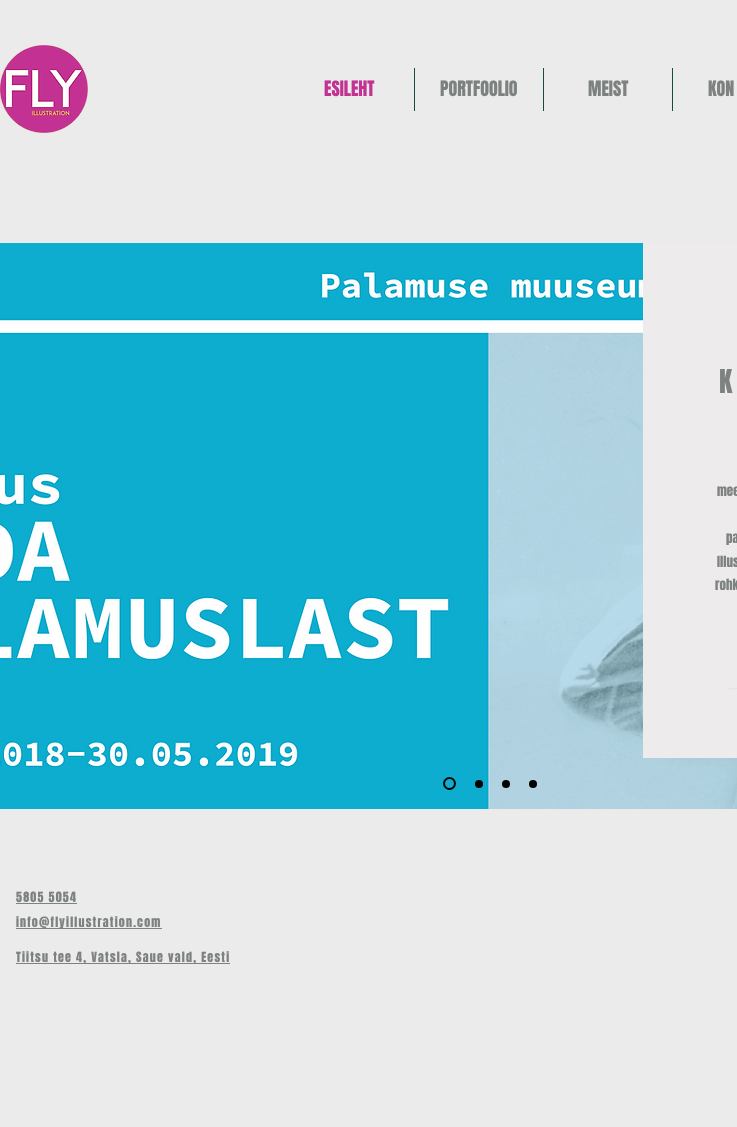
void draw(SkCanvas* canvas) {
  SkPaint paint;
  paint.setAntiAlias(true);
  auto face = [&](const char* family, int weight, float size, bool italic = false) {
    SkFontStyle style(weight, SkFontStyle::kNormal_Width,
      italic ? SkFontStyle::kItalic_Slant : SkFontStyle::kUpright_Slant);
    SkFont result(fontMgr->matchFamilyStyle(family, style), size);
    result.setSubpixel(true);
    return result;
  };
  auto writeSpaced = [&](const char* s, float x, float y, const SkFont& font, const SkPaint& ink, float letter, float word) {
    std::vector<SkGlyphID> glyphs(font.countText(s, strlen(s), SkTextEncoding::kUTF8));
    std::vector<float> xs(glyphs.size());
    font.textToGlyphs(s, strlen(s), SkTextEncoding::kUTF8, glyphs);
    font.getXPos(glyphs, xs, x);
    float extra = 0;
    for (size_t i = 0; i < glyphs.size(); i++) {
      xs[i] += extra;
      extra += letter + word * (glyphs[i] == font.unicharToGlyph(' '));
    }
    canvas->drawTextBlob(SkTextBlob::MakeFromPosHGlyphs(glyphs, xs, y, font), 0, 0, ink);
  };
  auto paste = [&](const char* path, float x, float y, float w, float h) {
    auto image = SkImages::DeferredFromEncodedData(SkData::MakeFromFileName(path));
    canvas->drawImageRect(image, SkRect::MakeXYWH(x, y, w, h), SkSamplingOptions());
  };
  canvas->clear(0xffebebeb);
  paste("img/1.png", 0, 45, 88, 88);
  {
    const struct { float x, y, w, h; SkColor color; } items[] = {
      {414, 68, 1, 43, 0xff184b43},
      {543, 68, 1, 43, 0xff184b43},
      {672, 68, 1, 43, 0xff184b43},
    };
    for (auto [x, y, w, h, color] : items) {
      paint.setColor(color);
      canvas->drawRect(SkRect::MakeXYWH(x, y, w, h), paint);
    }
  }
  paste("img/2.png", 0, 243, 737, 566);
  paint.setColor(0xffedebeb);
  canvas->drawRect(SkRect::MakeXYWH(643, 243, 94, 515), paint);
  paste("img/3.png", 727, 688, 10, 1);
  paint.setStroke(true);
  paint.setStrokeWidth(2);
  paint.setColor(0xff000000);
  canvas->drawCircle(449.5f, 783.5f, 5.5f, paint);
  paint.setStroke(false);
  canvas->drawCircle(479, 784, 4, paint);
  canvas->drawCircle(506, 784, 4, paint);
  canvas->drawCircle(533, 784, 4, paint);
  {
    const struct { float x, y, w, h; SkColor color; } items[] = {
      {16, 903, 61, 1, 0xff7d8281},
      {16, 928, 146, 1, 0xff7d8281},
      {16, 963, 214, 1, 0xff7d8281},
    };
    for (auto [x, y, w, h, color] : items) {
      paint.setColor(color);
      canvas->drawRect(SkRect::MakeXYWH(x, y, w, h), paint);
    }
  }
  auto f0 = face("Anton", 400, 18);
  paint.setColor(0xffc33293);
  canvas->drawString("ESILEHT", 324, 96, f0, paint);
  paint.setColor(0xff7d8281);
  {
    const struct { const char* s; float x, y; } items[] = {
      {"PORTFOOLIO", 440, 96},
      {"MEIST", 588, 96},
      {"KON", 708, 96},
    };
    for (auto [s, x, y] : items) {
      canvas->drawString(s, x, y, f0, paint);
    }
  }
  auto f1 = face("Anton", 400, 28);
  writeSpaced("K", 719, 393, f1, paint, 3, 0);
  auto f2 = face("Anton", 400, 13);
  {
    const struct { const char* s; float x, y; } items[] = {
      {"mee", 717, 496},
      {"pa", 726, 543},
      {"Illus", 717, 567},
      {"rohk", 715, 590},
    };
    for (auto [s, x, y] : items) {
      canvas->drawString(s, x, y, f2, paint);
    }
  }
  auto f3 = face("Anton", 400, 12);
  {
    const struct { const char* s; float x, y; } items[] = {
      {"5805 5054", 16, 902},
      {"info@flyillustration.com", 16, 927},
      {"Tiitsu tee 4, Vatsla, Saue vald, Eesti", 16, 962},
    };
    for (auto [s, x, y] : items) {
      writeSpaced(s, x, y, f3, paint, 1.2f, 0);
    }
  }
}
